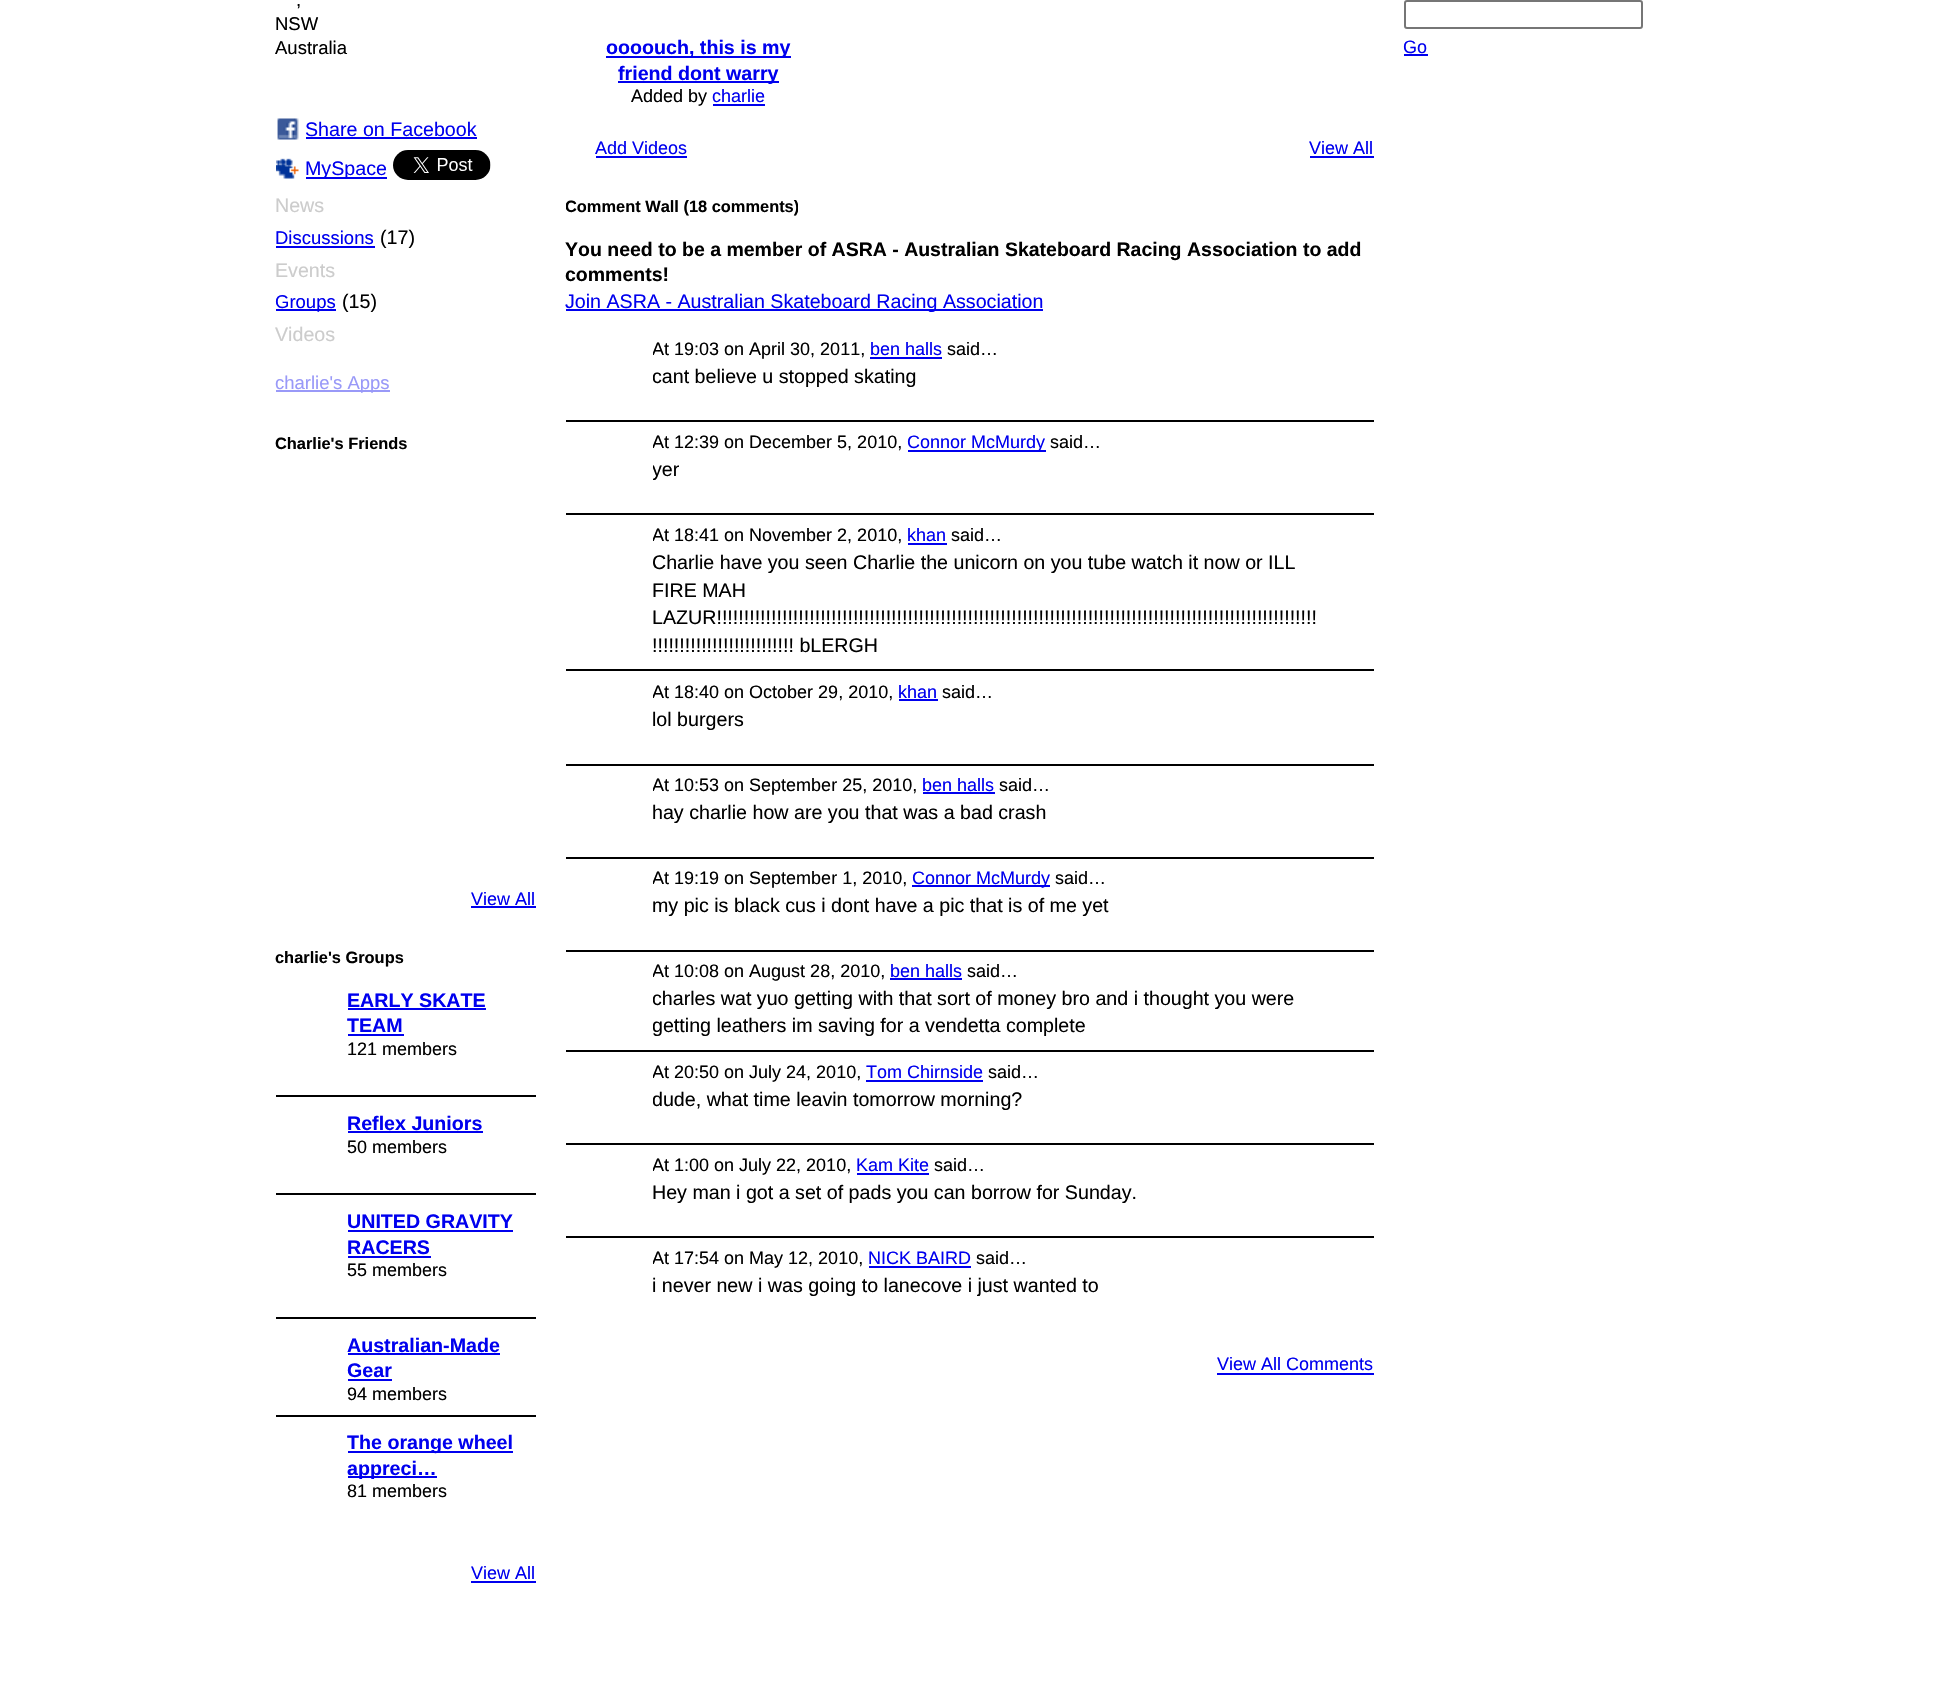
void draw(SkCanvas* canvas) {
  SkPaint paint;
  paint.setAntiAlias(true);
  auto face = [&](const char* family, int weight, float size, bool italic = false) {
    SkFontStyle style(weight, SkFontStyle::kNormal_Width,
      italic ? SkFontStyle::kItalic_Slant : SkFontStyle::kUpright_Slant);
    SkFont result(fontMgr->matchFamilyStyle(family, style), size);
    result.setSubpixel(true);
    return result;
  };
  auto paste = [&](const char* path, float x, float y, float w, float h) {
    auto image = SkImages::DeferredFromEncodedData(SkData::MakeFromFileName(path));
    canvas->drawImageRect(image, SkRect::MakeXYWH(x, y, w, h), SkSamplingOptions());
  };
  canvas->clear(0xffffffff);
  paste("img/1.png", 277, 118, 22, 22);
  paint.setColor(0xff0000ee);
  canvas->drawRect(SkRect::MakeXYWH(306, 137, 171, 2), paint);
  paste("img/2.png", 276, 158, 23, 21);
  canvas->drawRect(SkRect::MakeXYWH(306, 177, 81, 2), paint);
  paste("img/3.png", 393, 150, 98, 30);
  {
    const struct { float x, y, w, h; SkColor color; } items[] = {
      {276, 246, 99, 2, 0xff0000ee},
      {276, 309, 60, 2, 0xff0000ee},
      {276, 390, 114, 2, 0xff9999f8},
      {471, 906, 65, 2, 0xff0000ee},
      {276, 1095, 260, 2, 0xff000000},
      {348, 1008, 138, 2, 0xff0000ee},
      {348, 1034, 56, 2, 0xff0000ee},
      {276, 1193, 260, 2, 0xff000000},
      {348, 1131, 135, 2, 0xff0000ee},
      {276, 1317, 260, 2, 0xff000000},
      {348, 1230, 165, 2, 0xff0000ee},
      {348, 1256, 83, 2, 0xff0000ee},
      {276, 1415, 260, 2, 0xff000000},
      {348, 1353, 152, 2, 0xff0000ee},
      {348, 1379, 44, 2, 0xff0000ee},
      {348, 1451, 165, 2, 0xff0000ee},
      {348, 1476, 89, 2, 0xff0000ee},
      {471, 1581, 65, 2, 0xff0000ee},
      {606, 56, 185, 2, 0xff0000ee},
      {618, 81, 161, 2, 0xff0000ee},
      {713, 104, 52, 2, 0xff0000ee},
      {596, 156, 91, 2, 0xff0000ee},
      {1310, 156, 64, 2, 0xff0000ee},
      {566, 309, 477, 2, 0xff0000ee},
      {566, 420, 808, 2, 0xff000000},
      {870, 357, 72, 2, 0xff0000ee},
      {566, 513, 808, 2, 0xff000000},
      {908, 450, 138, 2, 0xff0000ee},
      {566, 669, 808, 2, 0xff000000},
      {908, 543, 39, 2, 0xff0000ee},
      {566, 764, 808, 2, 0xff000000},
      {899, 699, 39, 2, 0xff0000ee},
      {566, 857, 808, 2, 0xff000000},
      {923, 792, 72, 2, 0xff0000ee},
      {566, 950, 808, 2, 0xff000000},
      {912, 885, 138, 2, 0xff0000ee},
      {566, 1050, 808, 2, 0xff000000},
      {890, 978, 72, 2, 0xff0000ee},
      {566, 1143, 808, 2, 0xff000000},
      {866, 1080, 117, 2, 0xff0000ee},
      {566, 1236, 808, 2, 0xff000000},
      {857, 1173, 72, 2, 0xff0000ee},
      {869, 1266, 102, 2, 0xff0000ee},
      {1217, 1373, 157, 2, 0xff0000ee},
    };
    for (auto [x, y, w, h, color] : items) {
      paint.setColor(color);
      canvas->drawRect(SkRect::MakeXYWH(x, y, w, h), paint);
    }
  }
  paint.setStroke(true);
  paint.setStrokeWidth(2);
  paint.setColor(0xff767676);
  canvas->drawRoundRect(SkRect::MakeXYWH(1405, 1, 237, 27), 2, 2, paint);
  paint.setStroke(false);
  paint.setColor(0xff0000ee);
  canvas->drawRect(SkRect::MakeXYWH(1404, 54, 24, 2), paint);
  auto f0 = face("Liberation Sans", 400, 18.5f);
  paint.setColor(0xff000000);
  {
    const struct { const char* s; float x, y; } items[] = {
      {",", 296, 6},
      {"NSW", 275, 30},
      {"Australia", 275, 54},
    };
    for (auto [s, x, y] : items) {
      canvas->drawString(s, x, y, f0, paint);
    }
  }
  auto f1 = face("Liberation Sans", 400, 19.65f);
  paint.setColor(0xff0000ee);
  canvas->drawString("Share on Facebook", 305, 136, f1, paint);
  canvas->drawString("MySpace", 305, 175, f1, paint);
  paint.setColor(0xffcccccc);
  canvas->drawString("News", 275, 212, f1, paint);
  paint.setColor(0xff0000ee);
  canvas->drawString("Discussions", 275, 244, f0, paint);
  paint.setColor(0xff000000);
  canvas->drawString("(17)", 380, 244, f1, paint);
  paint.setColor(0xffcccccc);
  canvas->drawString("Events", 275, 277, f1, paint);
  paint.setColor(0xff0000ee);
  canvas->drawString("Groups", 275, 308, f0, paint);
  paint.setColor(0xff000000);
  canvas->drawString("(15)", 342, 308, f1, paint);
  paint.setColor(0xffcccccc);
  canvas->drawString("Videos", 275, 341, f1, paint);
  paint.setColor(0xff9999f8);
  canvas->drawString("charlie's Apps", 275, 389, f0, paint);
  auto f2 = face("Liberation Sans", 700, 16.4f);
  paint.setColor(0xff000000);
  canvas->drawString("Charlie's Friends", 275, 449, f2, paint);
  auto f3 = face("Liberation Sans", 400, 18);
  paint.setColor(0xff0000ee);
  canvas->drawString("View All", 471, 905, f3, paint);
  paint.setColor(0xff000000);
  canvas->drawString("charlie's Groups", 275, 963, f2, paint);
  auto f4 = face("Liberation Sans", 700, 19.65f);
  paint.setColor(0xff0000ee);
  canvas->drawString("EARLY SKATE", 347, 1007, f4, paint);
  canvas->drawString("TEAM", 347, 1032, f4, paint);
  paint.setColor(0xff000000);
  canvas->drawString("121 members", 347, 1055, f3, paint);
  paint.setColor(0xff0000ee);
  canvas->drawString("Reflex Juniors", 347, 1130, f4, paint);
  paint.setColor(0xff000000);
  canvas->drawString("50 members", 347, 1153, f3, paint);
  paint.setColor(0xff0000ee);
  canvas->drawString("UNITED GRAVITY", 347, 1228, f4, paint);
  canvas->drawString("RACERS", 347, 1254, f4, paint);
  paint.setColor(0xff000000);
  canvas->drawString("55 members", 347, 1276, f3, paint);
  paint.setColor(0xff0000ee);
  canvas->drawString("Australian-Made", 347, 1352, f4, paint);
  canvas->drawString("Gear", 347, 1377, f4, paint);
  paint.setColor(0xff000000);
  canvas->drawString("94 members", 347, 1400, f3, paint);
  paint.setColor(0xff0000ee);
  canvas->drawString("The orange wheel", 347, 1449, f4, paint);
  canvas->drawString("appreci…", 347, 1475, f4, paint);
  paint.setColor(0xff000000);
  canvas->drawString("81 members", 347, 1497, f3, paint);
  paint.setColor(0xff0000ee);
  canvas->drawString("View All", 471, 1579, f3, paint);
  canvas->drawString("oooouch, this is my", 606, 54, f4, paint);
  canvas->drawString("friend dont warry", 618, 80, f4, paint);
  paint.setColor(0xff000000);
  canvas->drawString("Added by", 631, 102, f3, paint);
  paint.setColor(0xff0000ee);
  {
    const struct { const char* s; float x, y; } items[] = {
      {"charlie", 712, 102},
      {"Add Videos", 595, 154},
      {"View All", 1309, 154},
    };
    for (auto [s, x, y] : items) {
      canvas->drawString(s, x, y, f3, paint);
    }
  }
  canvas->save();
  canvas->clipRect(SkRect::MakeXYWH(566, 195, 232, 23));
  paint.setColor(0xff000000);
  canvas->drawString("Comment Wall (18 comments)", 565, 212, f2, paint);
  canvas->restore();
  auto f5 = face("Liberation Sans", 700, 19.5f);
  canvas->drawString("You need to be a member of ASRA - Australian Skateboard Racing Association to add", 565, 256, f5, paint);
  canvas->drawString("comments!", 565, 281, f5, paint);
  paint.setColor(0xff0000ee);
  canvas->drawString("Join ASRA - Australian Skateboard Racing Association", 565, 308, f1, paint);
  canvas->save();
  canvas->clipRect(SkRect::MakeXYWH(653, 339, 669, 23));
  paint.setColor(0xff000000);
  canvas->drawString("At 19:03 on April 30, 2011,", 652, 355, f3, paint);
  canvas->restore();
  paint.setColor(0xff0000ee);
  canvas->drawString("ben halls", 870, 355, f3, paint);
  paint.setColor(0xff000000);
  canvas->drawString("said…", 947, 355, f3, paint);
  canvas->save();
  canvas->clipRect(SkRect::MakeXYWH(653, 365, 669, 27));
  canvas->drawString("cant believe u stopped skating", 652, 383, f1, paint);
  canvas->restore();
  canvas->save();
  canvas->clipRect(SkRect::MakeXYWH(653, 432, 669, 23));
  canvas->drawString("At 12:39 on December 5, 2010,", 652, 448, f3, paint);
  canvas->restore();
  paint.setColor(0xff0000ee);
  canvas->drawString("Connor McMurdy", 907, 448, f3, paint);
  paint.setColor(0xff000000);
  canvas->drawString("said…", 1050, 448, f3, paint);
  canvas->save();
  canvas->clipRect(SkRect::MakeXYWH(653, 458, 669, 27));
  canvas->drawString("yer", 652, 476, f1, paint);
  canvas->restore();
  canvas->save();
  canvas->clipRect(SkRect::MakeXYWH(653, 525, 669, 23));
  canvas->drawString("At 18:41 on November 2, 2010,", 652, 541, f3, paint);
  canvas->restore();
  paint.setColor(0xff0000ee);
  canvas->drawString("khan", 907, 541, f3, paint);
  paint.setColor(0xff000000);
  canvas->drawString("said…", 951, 541, f3, paint);
  canvas->save();
  canvas->clipRect(SkRect::MakeXYWH(653, 551, 669, 109));
  canvas->drawString("Charlie have you seen Charlie the unicorn on you tube watch it now or ILL", 652, 569, f1, paint);
  canvas->restore();
  {
    const struct { const char* s; float x, y; } items[] = {
      {"FIRE MAH", 652, 597},
      {"LAZUR!!!!!!!!!!!!!!!!!!!!!!!!!!!!!!!!!!!!!!!!!!!!!!!!!!!!!!!!!!!!!!!!!!!!!!!!!!!!!!!!!!!!!!!!!!!!!!!!!!!!!!!!!!!!!!", 652, 624},
      {"!!!!!!!!!!!!!!!!!!!!!!!!!! bLERGH", 652, 652},
    };
    for (auto [s, x, y] : items) {
      canvas->drawString(s, x, y, f1, paint);
    }
  }
  canvas->save();
  canvas->clipRect(SkRect::MakeXYWH(653, 681, 669, 24));
  canvas->drawString("At 18:40 on October 29, 2010,", 652, 698, f3, paint);
  canvas->restore();
  paint.setColor(0xff0000ee);
  canvas->drawString("khan", 898, 698, f3, paint);
  paint.setColor(0xff000000);
  canvas->drawString("said…", 942, 698, f3, paint);
  canvas->drawString("lol burgers", 652, 726, f1, paint);
  canvas->save();
  canvas->clipRect(SkRect::MakeXYWH(653, 774, 669, 24));
  canvas->drawString("At 10:53 on September 25, 2010,", 652, 791, f3, paint);
  canvas->restore();
  paint.setColor(0xff0000ee);
  canvas->drawString("ben halls", 922, 791, f3, paint);
  paint.setColor(0xff000000);
  canvas->drawString("said…", 999, 791, f3, paint);
  canvas->drawString("hay charlie how are you that was a bad crash", 652, 819, f1, paint);
  canvas->save();
  canvas->clipRect(SkRect::MakeXYWH(653, 867, 669, 24));
  canvas->drawString("At 19:19 on September 1, 2010,", 652, 884, f3, paint);
  canvas->restore();
  paint.setColor(0xff0000ee);
  canvas->drawString("Connor McMurdy", 912, 884, f3, paint);
  paint.setColor(0xff000000);
  canvas->drawString("said…", 1055, 884, f3, paint);
  canvas->drawString("my pic is black cus i dont have a pic that is of me yet", 652, 912, f1, paint);
  canvas->save();
  canvas->clipRect(SkRect::MakeXYWH(653, 960, 669, 24));
  canvas->drawString("At 10:08 on August 28, 2010,", 652, 977, f3, paint);
  canvas->restore();
  paint.setColor(0xff0000ee);
  canvas->drawString("ben halls", 890, 977, f3, paint);
  paint.setColor(0xff000000);
  canvas->drawString("said…", 967, 977, f3, paint);
  canvas->save();
  canvas->clipRect(SkRect::MakeXYWH(653, 986, 669, 55));
  canvas->drawString("charles wat yuo getting with that sort of money bro and i thought you were", 652, 1005, f1, paint);
  canvas->drawString("getting leathers im saving for a vendetta complete", 652, 1032, f1, paint);
  canvas->restore();
  canvas->save();
  canvas->clipRect(SkRect::MakeXYWH(653, 1062, 669, 23));
  canvas->drawString("At 20:50 on July 24, 2010,", 652, 1078, f3, paint);
  canvas->restore();
  paint.setColor(0xff0000ee);
  canvas->drawString("Tom Chirnside", 866, 1078, f3, paint);
  paint.setColor(0xff000000);
  canvas->drawString("said…", 988, 1078, f3, paint);
  canvas->save();
  canvas->clipRect(SkRect::MakeXYWH(653, 1088, 669, 27));
  canvas->drawString("dude, what time leavin tomorrow morning?", 652, 1106, f1, paint);
  canvas->restore();
  canvas->save();
  canvas->clipRect(SkRect::MakeXYWH(653, 1155, 669, 23));
  canvas->drawString("At 1:00 on July 22, 2010,", 652, 1171, f3, paint);
  canvas->restore();
  paint.setColor(0xff0000ee);
  canvas->drawString("Kam Kite", 856, 1171, f3, paint);
  paint.setColor(0xff000000);
  canvas->drawString("said…", 934, 1171, f3, paint);
  canvas->drawString("Hey man i got a set of pads you can borrow for Sunday.", 652, 1199, f1, paint);
  canvas->save();
  canvas->clipRect(SkRect::MakeXYWH(653, 1248, 669, 23));
  canvas->drawString("At 17:54 on May 12, 2010,", 652, 1264, f3, paint);
  canvas->restore();
  paint.setColor(0xff0000ee);
  canvas->drawString("NICK BAIRD", 868, 1264, f3, paint);
  paint.setColor(0xff000000);
  canvas->drawString("said…", 976, 1264, f3, paint);
  canvas->drawString("i never new i was going to lanecove i just wanted to", 652, 1292, f1, paint);
  paint.setColor(0xff0000ee);
  canvas->drawString("View All Comments", 1217, 1370, f3, paint);
  canvas->drawString("Go", 1403, 53, f3, paint);
}
